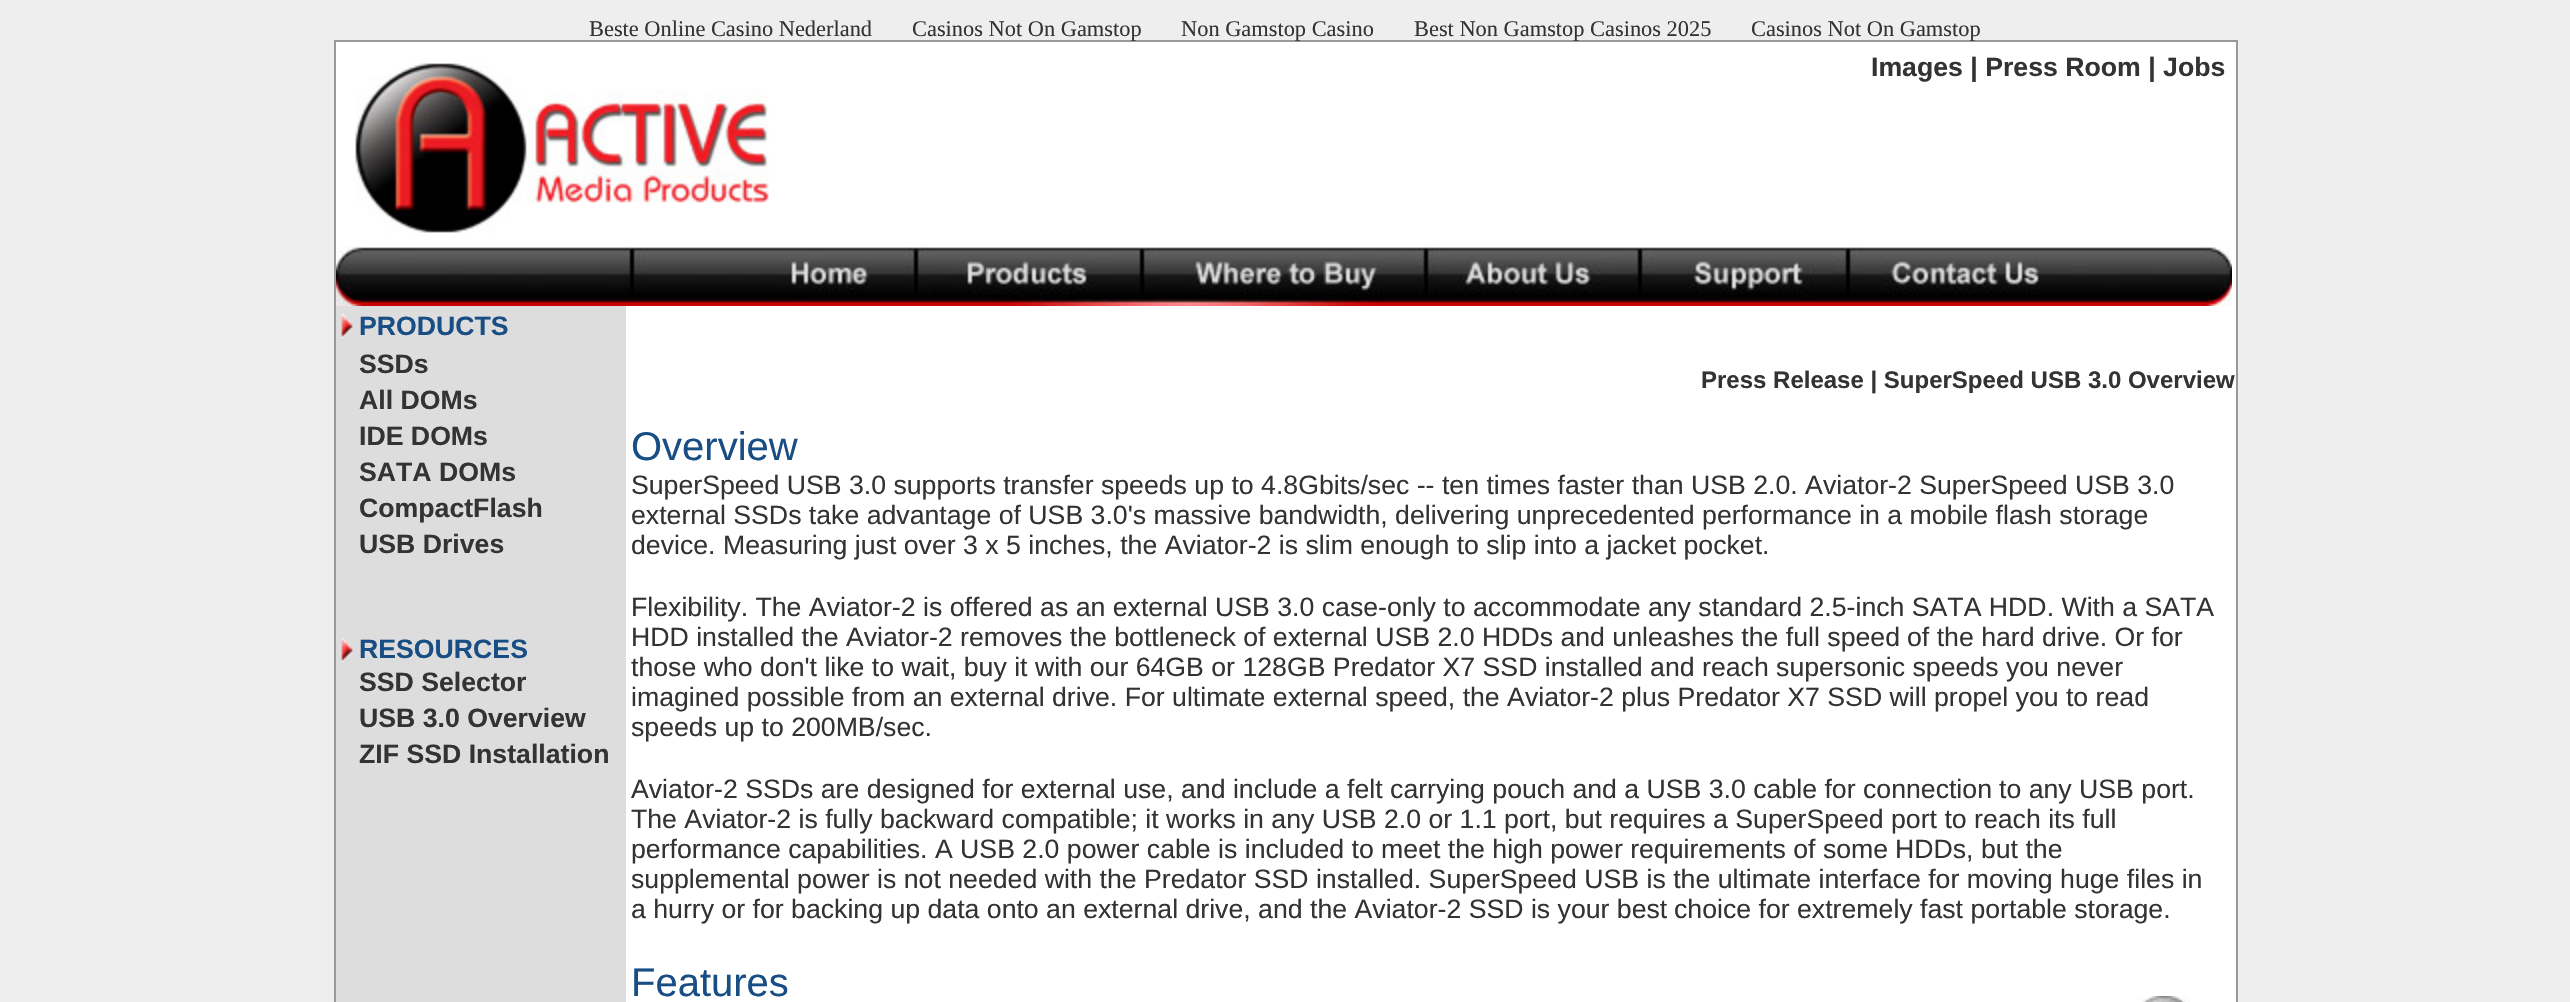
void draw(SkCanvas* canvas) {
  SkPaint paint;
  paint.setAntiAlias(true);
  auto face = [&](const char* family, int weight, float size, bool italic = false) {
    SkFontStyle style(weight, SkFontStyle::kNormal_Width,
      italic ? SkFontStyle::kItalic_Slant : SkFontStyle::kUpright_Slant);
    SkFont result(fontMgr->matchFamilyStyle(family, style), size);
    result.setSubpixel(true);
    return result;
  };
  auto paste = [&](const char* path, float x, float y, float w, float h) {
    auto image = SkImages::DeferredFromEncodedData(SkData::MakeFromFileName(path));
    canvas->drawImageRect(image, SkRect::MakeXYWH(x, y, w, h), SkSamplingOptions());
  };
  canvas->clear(0xffeeeeee);
  paint.setColor(0xffffffff);
  canvas->drawRect(SkRect::MakeXYWH(335, 41, 1902, 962), paint);
  paint.setStroke(true);
  paint.setStrokeWidth(2);
  paint.setColor(0xff999999);
  canvas->drawRect(SkRect::MakeXYWH(335, 41, 1902, 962), paint);
  paste("img/1.png", 355, 63, 414, 170);
  paste("img/2.png", 336, 246, 296, 60);
  paste("img/3.png", 632, 247, 284, 59);
  paste("img/4.png", 916, 246, 226, 60);
  paste("img/5.png", 1142, 247, 284, 59);
  paste("img/6.png", 1426, 246, 214, 60);
  paste("img/7.png", 1640, 246, 208, 60);
  paste("img/8.png", 1848, 246, 384, 60);
  paint.setStroke(false);
  paint.setColor(0xffdddddd);
  canvas->drawRect(SkRect::MakeXYWH(336, 306, 290, 696), paint);
  paste("img/9.png", 341, 314, 12, 24);
  paste("img/9.png", 341, 638, 12, 24);
  paste("img/10.png", 2140, 996, 50, 6);
  auto f0 = face("Liberation Serif", 400, 22.4f);
  paint.setColor(0xff333333);
  {
    const struct { const char* s; float x, y; } items[] = {
      {"Beste Online Casino Nederland", 589, 36},
      {"Casinos Not On Gamstop", 912, 36},
      {"Non Gamstop Casino", 1181, 36},
      {"Best Non Gamstop Casinos 2025", 1414, 36},
      {"Casinos Not On Gamstop", 1751, 36},
    };
    for (auto [s, x, y] : items) {
      canvas->drawString(s, x, y, f0, paint);
    }
  }
  auto f1 = face("Liberation Sans", 700, 26.67f);
  canvas->drawString("Images | Press Room | Jobs", 1871, 76, f1, paint);
  paint.setColor(0xff194e84);
  canvas->drawString("PRODUCTS", 359, 335, f1, paint);
  paint.setColor(0xff333333);
  {
    const struct { const char* s; float x, y; } items[] = {
      {"SSDs", 359, 373},
      {"All DOMs", 359, 409},
      {"IDE DOMs", 359, 445},
      {"SATA DOMs", 359, 481},
      {"CompactFlash", 359, 517},
      {"USB Drives", 359, 553},
    };
    for (auto [s, x, y] : items) {
      canvas->drawString(s, x, y, f1, paint);
    }
  }
  paint.setColor(0xff194e84);
  canvas->drawString("RESOURCES", 359, 658, f1, paint);
  paint.setColor(0xff333333);
  {
    const struct { const char* s; float x, y; } items[] = {
      {"SSD Selector", 359, 691},
      {"USB 3.0 Overview", 359, 727},
      {"ZIF SSD Installation", 359, 763},
    };
    for (auto [s, x, y] : items) {
      canvas->drawString(s, x, y, f1, paint);
    }
  }
  auto f2 = face("Liberation Sans", 700, 24);
  canvas->drawString("Press Release | SuperSpeed USB 3.0 Overview", 1701, 388, f2, paint);
  auto f3 = face("Liberation Sans", 400, 40);
  paint.setColor(0xff194e84);
  canvas->drawString("Overview", 631, 460, f3, paint);
  auto f4 = face("Liberation Sans", 400, 26.67f);
  paint.setColor(0xff333333);
  {
    const struct { const char* s; float x, y; } items[] = {
      {"SuperSpeed USB 3.0 supports transfer speeds up to 4.8Gbits/sec -- ten times faster than USB 2.0. Aviator-2 SuperSpeed USB 3.0", 631, 494},
      {"external SSDs take advantage of USB 3.0's massive bandwidth, delivering unprecedented performance in a mobile flash storage", 631, 524},
      {"device. Measuring just over 3 x 5 inches, the Aviator-2 is slim enough to slip into a jacket pocket.", 631, 554},
      {"Flexibility. The Aviator-2 is offered as an external USB 3.0 case-only to accommodate any standard 2.5-inch SATA HDD. With a SATA", 631, 616},
      {"HDD installed the Aviator-2 removes the bottleneck of external USB 2.0 HDDs and unleashes the full speed", 631, 646},
      {"of the hard drive. Or for", 1907, 646},
      {"those who don't like to wait, buy it with our 64GB or 128GB Predator X7 SSD installed and reach supersonic speeds you never", 631, 676},
      {"imagined possible from an external drive. For ultimate external speed, the Aviator-2 plus Predator X7 SSD will propel you to read", 631, 706},
      {"speeds up to 200MB/sec.", 631, 736},
      {"Aviator-2 SSDs are designed for external use, and include a felt carrying pouch and a USB 3.0 cable for connection", 631, 798},
      {"to any USB port.", 1999, 798},
      {"The Aviator-2 is fully backward compatible; it works in any USB 2.0 or 1.1 port, but requires a SuperSpeed port to reach its full", 631, 828},
      {"performance capabilities. A USB 2.0 power cable is included to meet the high power requirements of some", 631, 858},
      {"HDDs, but the", 1895, 858},
      {"supplemental power is not needed with the Predator SSD installed. SuperSpeed USB is the ultimate interface for moving huge files in", 631, 888},
      {"a hurry or for backing up data onto an external drive, and the Aviator-2 SSD is your best", 631, 918},
      {"choice for extremely fast portable storage.", 1674, 918},
    };
    for (auto [s, x, y] : items) {
      canvas->drawString(s, x, y, f4, paint);
    }
  }
  paint.setColor(0xff194e84);
  canvas->drawString("Features", 631, 996, f3, paint);
}
